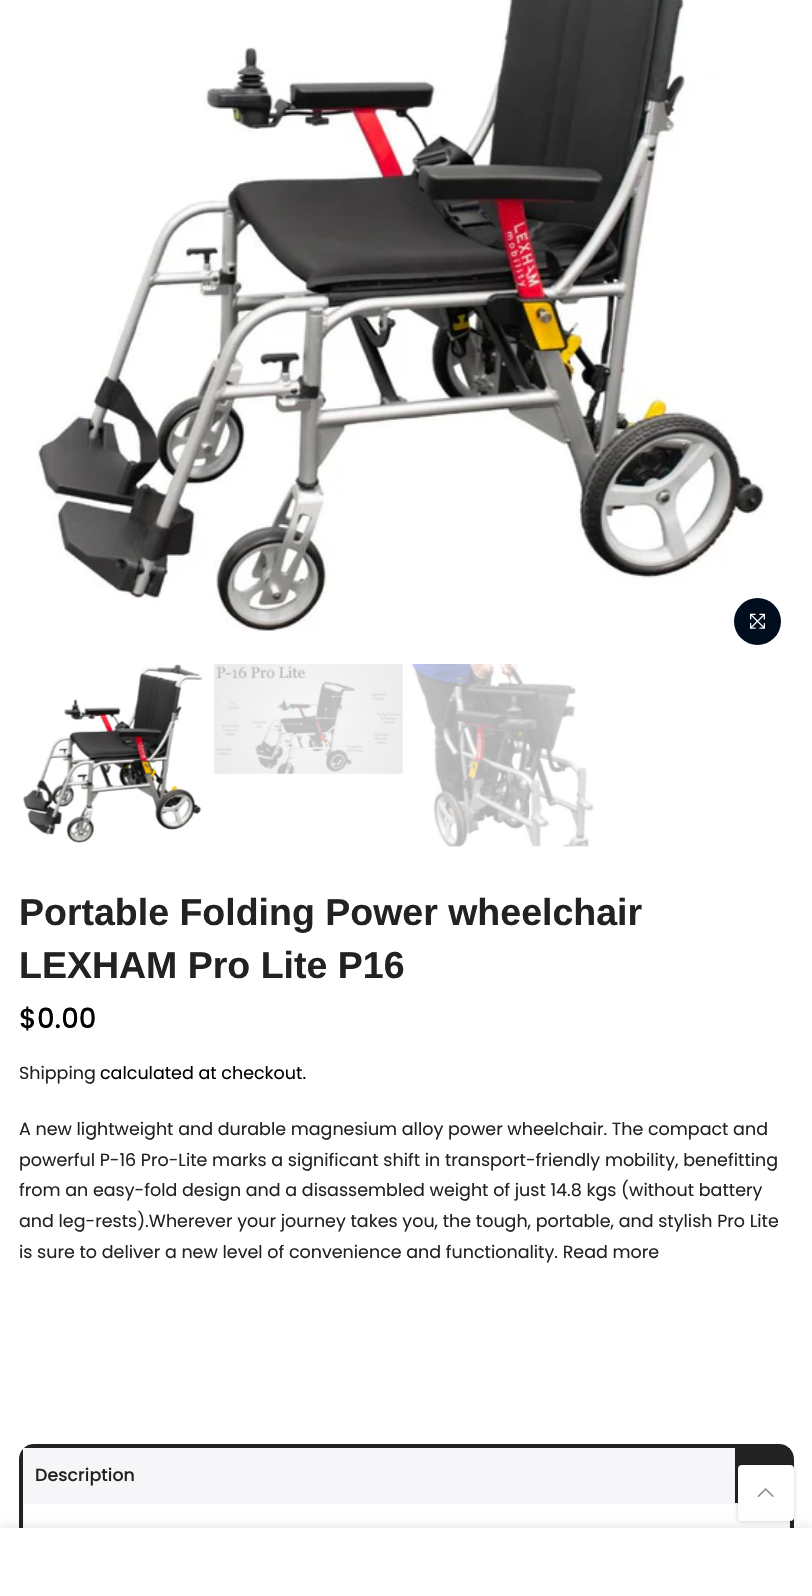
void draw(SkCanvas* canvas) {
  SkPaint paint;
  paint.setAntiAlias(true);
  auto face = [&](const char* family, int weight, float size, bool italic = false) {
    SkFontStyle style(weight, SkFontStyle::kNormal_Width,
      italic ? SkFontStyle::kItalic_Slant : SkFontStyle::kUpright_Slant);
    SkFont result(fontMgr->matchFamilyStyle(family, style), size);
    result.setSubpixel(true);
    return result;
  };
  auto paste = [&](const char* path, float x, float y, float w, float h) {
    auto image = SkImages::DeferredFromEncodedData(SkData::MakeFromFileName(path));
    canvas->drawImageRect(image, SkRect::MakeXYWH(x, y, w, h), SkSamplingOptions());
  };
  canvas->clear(0xffffffff);
  paste("img/1.png", 37, 0, 728, 631);
  paint.setColor(0xff000d1d);
  canvas->drawCircle(757.5f, 621.5f, 23.5f, paint);
  paste("img/2.png", 750, 613, 15, 16);
  paste("img/3.png", 23, 664, 180, 179);
  paste("img/4.png", 213, 664, 190, 110);
  paste("img/5.png", 411, 664, 183, 183);
  paint.setStroke(true);
  paint.setStrokeWidth(4);
  paint.setColor(0xff222222);
  canvas->drawRoundRect(SkRect::MakeXYWH(21, 1446, 771, 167), 13, 13, paint);
  paint.setStroke(false);
  {
    const struct { float x, y, w, h; SkColor color; } items[] = {
      {23, 1448, 715, 56, 0xfff6f6f8},
      {735, 1448, 55, 55, 0xff222222},
      {789, 1521, 1, 7, 0xfff5f5f5},
      {23, 1504, 1, 24, 0xfff5f5f5},
    };
    for (auto [x, y, w, h, color] : items) {
      paint.setColor(color);
      canvas->drawRect(SkRect::MakeXYWH(x, y, w, h), paint);
    }
  }
  paint.setColor(0x33000000);
  paint.setMaskFilter(SkMaskFilter::MakeBlur(kNormal_SkBlurStyle, 2));
  canvas->drawRoundRect(SkRect::MakeXYWH(738, 1465, 56, 56), 4, 4, paint);
  paint.setMaskFilter(nullptr);
  paint.setColor(0xffffffff);
  canvas->drawRoundRect(SkRect::MakeXYWH(738, 1465, 56, 56), 4, 4, paint);
  paste("img/6.png", 757, 1488, 17, 10);
  paint.setColor(0x1f000000);
  paint.setMaskFilter(SkMaskFilter::MakeBlur(kNormal_SkBlurStyle, 5.5f));
  canvas->drawRect(SkRect::MakeXYWH(0, 1528, 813, 68), paint);
  paint.setMaskFilter(nullptr);
  paint.setColor(0xffffffff);
  canvas->drawRect(SkRect::MakeXYWH(0, 1528, 812, 68), paint);
  auto f0 = face("Liberation Sans", 700, 37.5f);
  paint.setColor(0xff222222);
  canvas->drawString("Portable Folding Power wheelchair", 19, 925, f0, paint);
  canvas->drawString("LEXHAM Pro Lite P16", 19, 978, f0, paint);
  auto f1 = face("Poppins", 500, 27.5f);
  paint.setColor(0xff000000);
  canvas->drawString("$0.00", 19, 1028, f1, paint);
  auto f2 = face("Poppins", 400, 17.5f);
  paint.setColor(0xff222222);
  canvas->drawString("Shipping", 19, 1079, f2, paint);
  paint.setColor(0xff000000);
  canvas->drawString("calculated at checkout.", 100, 1079, f2, paint);
  paint.setColor(0xff222222);
  {
    const struct { const char* s; float x, y; } items[] = {
      {"A new lightweight and durable magnesium alloy power wheelchair. The compact and", 19, 1135},
      {"powerful P-16 Pro-Lite marks a significant shift in transport-friendly mobility, benefitting", 19, 1166},
      {"from an easy-fold design and a disassembled weight of just 14.8 kgs (without battery", 19, 1196},
      {"and leg-rests).Wherever your journey takes you, the tough, portable, and stylish Pro Lite", 19, 1227},
      {"is sure to deliver a new level of convenience and functionality. Read more", 19, 1258},
    };
    for (auto [s, x, y] : items) {
      canvas->drawString(s, x, y, f2, paint);
    }
  }
  auto f3 = face("Poppins", 500, 17.5f);
  canvas->drawString("Description", 35, 1481, f3, paint);
}
